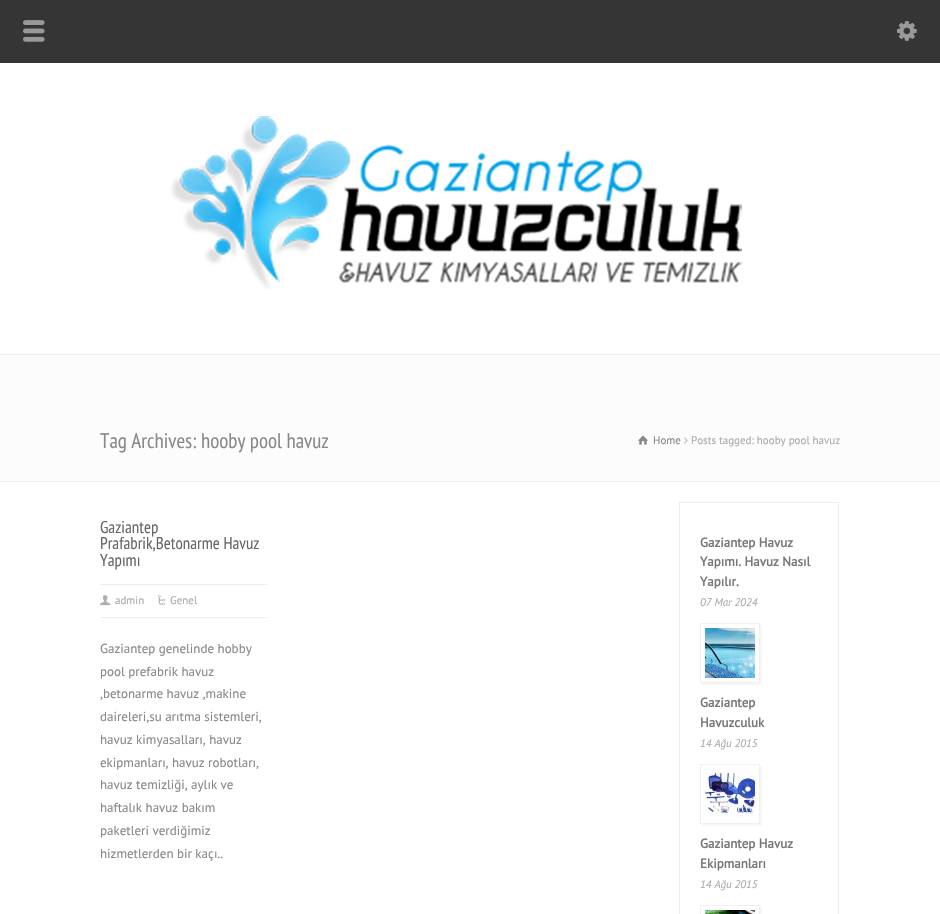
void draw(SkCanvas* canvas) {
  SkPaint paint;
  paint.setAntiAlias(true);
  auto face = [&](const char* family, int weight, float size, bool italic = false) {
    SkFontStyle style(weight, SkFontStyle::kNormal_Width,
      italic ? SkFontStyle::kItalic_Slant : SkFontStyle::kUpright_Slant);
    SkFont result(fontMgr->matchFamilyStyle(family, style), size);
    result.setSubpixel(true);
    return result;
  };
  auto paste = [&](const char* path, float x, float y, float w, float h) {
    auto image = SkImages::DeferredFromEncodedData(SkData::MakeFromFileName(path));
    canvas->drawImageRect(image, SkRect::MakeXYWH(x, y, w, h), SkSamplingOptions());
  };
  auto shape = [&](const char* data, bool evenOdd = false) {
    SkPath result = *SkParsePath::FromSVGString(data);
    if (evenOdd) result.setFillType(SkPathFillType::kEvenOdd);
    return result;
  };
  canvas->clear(0xffffffff);
  paint.setColor(0xff353535);
  canvas->drawRect(SkRect::MakeXYWH(0, 0, 940, 63), paint);
  paste("img/1.png", 23, 20, 22, 22);
  paste("img/2.png", 897, 21, 20, 20);
  paste("img/3.png", 170, 116, 572, 173);
  {
    const struct { float x, y, w, h; SkColor color; } items[] = {
      {0, 355, 940, 126, 0xfffcfcfc},
      {0, 354, 940, 1, 0xffeeeeee},
      {0, 481, 940, 1, 0xffeeeeee},
    };
    for (auto [x, y, w, h, color] : items) {
      paint.setColor(color);
      canvas->drawRect(SkRect::MakeXYWH(x, y, w, h), paint);
    }
  }
  paste("img/4.png", 638, 435, 10, 10);
  paste("img/5.png", 684, 437, 4, 7);
  canvas->drawRect(SkRect::MakeXYWH(100, 617, 167, 1), paint);
  canvas->drawRect(SkRect::MakeXYWH(100, 584, 167, 1), paint);
  paste("img/6.png", 100, 595, 11, 11);
  paste("img/7.png", 158, 595, 7, 11);
  paint.setStroke(true);
  paint.setStrokeWidth(1);
  paint.setColor(0xffededed);
  canvas->drawRect(SkRect::MakeXYWH(679.5f, 502.5f, 159, 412), paint);
  paint.setStroke(false);
  paint.setColor(0xfff6f6f6);
  canvas->drawPath(shape("M702 683V685H762V625H760V683Z"), paint);
  paint.setStroke(true);
  paint.setColor(0xfff0f0f0);
  canvas->drawRect(SkRect::MakeXYWH(700.5f, 623.5f, 59, 59), paint);
  paste("img/8.png", 705, 628, 50, 50);
  paint.setStroke(false);
  paint.setColor(0xfff6f6f6);
  canvas->drawPath(shape("M702 824V826H762V766H760V824Z"), paint);
  paint.setStroke(true);
  paint.setColor(0xfff0f0f0);
  canvas->drawRect(SkRect::MakeXYWH(700.5f, 764.5f, 59, 59), paint);
  paste("img/9.png", 705, 769, 50, 48);
  paint.setStroke(false);
  paint.setColor(0xfff6f6f6);
  canvas->drawPath(shape("M702 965V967H762V907H760V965Z"), paint);
  paint.setStroke(true);
  paint.setColor(0xfff0f0f0);
  canvas->drawRect(SkRect::MakeXYWH(700.5f, 905.5f, 59, 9), paint);
  paste("img/10.png", 705, 910, 50, 4);
  auto f0 = face("PT Sans Narrow", 400, 21);
  paint.setStroke(false);
  paint.setColor(0xff888888);
  canvas->drawString("Tag Archives: hooby pool havuz", 100, 448, f0, paint);
  auto f1 = face("PT Sans", 400, 11);
  canvas->drawString("Home", 653, 444, f1, paint);
  paint.setColor(0xffaaaaaa);
  canvas->drawString("Posts tagged: hooby pool havuz", 691, 444, f1, paint);
  auto f2 = face("PT Sans Narrow", 400, 17);
  paint.setColor(0xff666666);
  {
    const struct { const char* s; float x, y; } items[] = {
      {"Gaziantep", 100, 533},
      {"Prafabrik,Betonarme Havuz", 100, 549},
      {"Yapımı", 100, 566},
    };
    for (auto [s, x, y] : items) {
      canvas->drawString(s, x, y, f2, paint);
    }
  }
  paint.setColor(0xffaaaaaa);
  canvas->drawString("admin", 115, 604, f1, paint);
  canvas->drawString("Genel", 170, 604, f1, paint);
  auto f3 = face("PT Sans", 400, 13);
  paint.setColor(0xff888888);
  {
    const struct { const char* s; float x, y; } items[] = {
      {"Gaziantep genelinde hobby", 100, 653},
      {"pool prefabrik havuz", 100, 676},
      {",betonarme havuz ,makine", 100, 698},
      {"daireleri,su arıtma sistemleri,", 100, 721},
      {"havuz kimyasalları, havuz", 100, 744},
      {"ekipmanları, havuz robotları,", 100, 767},
      {"havuz temizliği, aylık ve", 100, 789},
      {"haftalık havuz bakım", 100, 812},
      {"paketleri verdiğimiz", 100, 835},
      {"hizmetlerden bir kaçı..", 100, 858},
    };
    for (auto [s, x, y] : items) {
      canvas->drawString(s, x, y, f3, paint);
    }
  }
  auto f4 = face("PT Sans", 700, 13);
  paint.setColor(0xff777777);
  {
    const struct { const char* s; float x, y; } items[] = {
      {"Gaziantep Havuz", 700, 547},
      {"Yapımı. Havuz Nasıl", 700, 566},
      {"Yapılır.", 700, 586},
    };
    for (auto [s, x, y] : items) {
      canvas->drawString(s, x, y, f4, paint);
    }
  }
  auto f5 = face("PT Sans", 400, 11, true);
  paint.setColor(0xffaaaaaa);
  canvas->drawString("07 Mar 2024", 700, 606, f5, paint);
  paint.setColor(0xff777777);
  canvas->drawString("Gaziantep", 700, 707, f4, paint);
  canvas->drawString("Havuzculuk", 700, 727, f4, paint);
  paint.setColor(0xffaaaaaa);
  canvas->drawString("14 Ağu 2015", 700, 747, f5, paint);
  paint.setColor(0xff777777);
  canvas->drawString("Gaziantep Havuz", 700, 848, f4, paint);
  canvas->drawString("Ekipmanları", 700, 868, f4, paint);
  paint.setColor(0xffaaaaaa);
  canvas->drawString("14 Ağu 2015", 700, 888, f5, paint);
}
